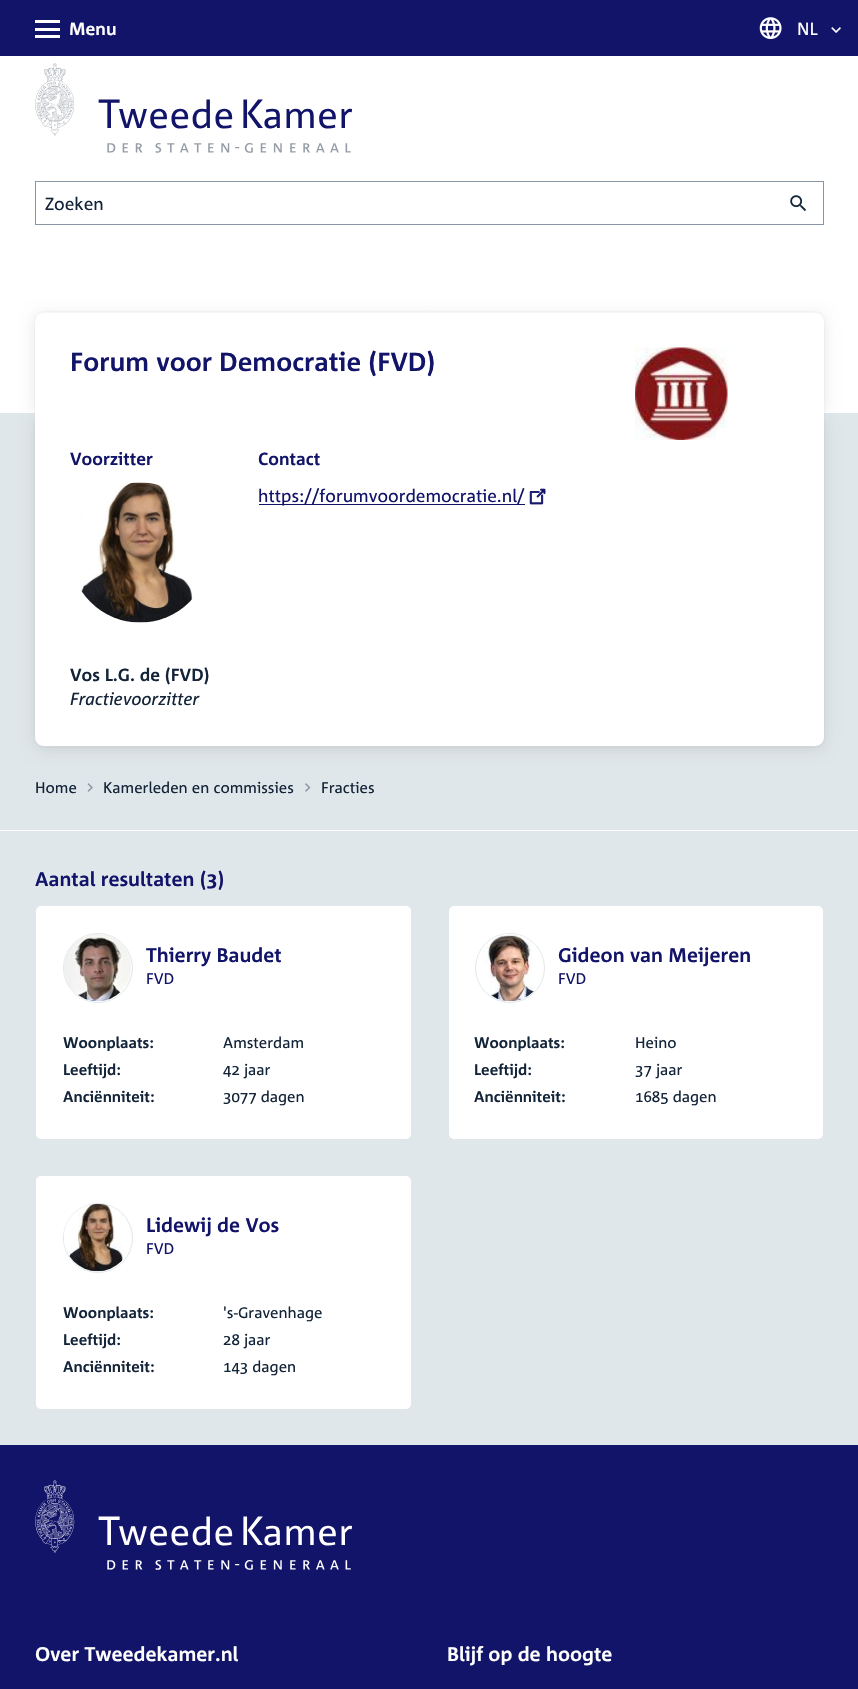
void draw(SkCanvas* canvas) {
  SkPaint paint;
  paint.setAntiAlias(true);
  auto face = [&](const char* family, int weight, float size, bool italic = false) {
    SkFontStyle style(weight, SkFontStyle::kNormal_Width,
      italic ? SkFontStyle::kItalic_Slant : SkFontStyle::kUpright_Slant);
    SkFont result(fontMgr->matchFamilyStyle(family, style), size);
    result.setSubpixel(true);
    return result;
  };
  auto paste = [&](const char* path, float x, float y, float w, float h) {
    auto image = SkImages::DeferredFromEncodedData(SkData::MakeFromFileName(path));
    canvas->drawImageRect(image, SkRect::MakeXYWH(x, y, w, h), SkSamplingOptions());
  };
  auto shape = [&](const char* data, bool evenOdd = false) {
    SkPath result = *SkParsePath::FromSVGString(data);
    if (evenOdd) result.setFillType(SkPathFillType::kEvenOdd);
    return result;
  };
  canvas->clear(0xffffffff);
  {
    const struct { float x, y, w, h; SkColor color; } items[] = {
      {0, 0, 858, 56, 0xff121469},
      {35, 20, 25, 3, 0xffffffff},
      {35, 28, 25, 3, 0xffffffff},
      {35, 35, 25, 3, 0xffffffff},
    };
    for (auto [x, y, w, h, color] : items) {
      paint.setColor(color);
      canvas->drawRect(SkRect::MakeXYWH(x, y, w, h), paint);
    }
  }
  paste("img/1.png", 759, 17, 23, 23);
  paste("img/2.png", 831, 27, 10, 6);
  paste("img/3.png", 35, 63, 318, 90);
  {
    const struct { float x, y, w, h; SkColor color; } items[] = {
      {35, 181, 789, 1, 0xff8996a4},
      {35, 224, 740, 1, 0xff8996a4},
      {35, 181, 1, 44, 0xff8996a4},
      {823, 181, 1, 44, 0xff8996a4},
      {775, 224, 49, 1, 0xff8996a4},
    };
    for (auto [x, y, w, h, color] : items) {
      paint.setColor(color);
      canvas->drawRect(SkRect::MakeXYWH(x, y, w, h), paint);
    }
  }
  paste("img/4.png", 790, 195, 17, 17);
  paint.setStroke(true);
  paint.setStrokeWidth(1);
  paint.setColor(0xfffafafa);
  canvas->drawPath(shape("M44 311.5H815C820 311.5 824.5 316 824.5 321V413.5H34.5V321C34.5 316 39 311.5 44 311.5Z"), paint);
  paint.setStroke(false);
  paint.setColor(0x1a000000);
  paint.setMaskFilter(SkMaskFilter::MakeBlur(kNormal_SkBlurStyle, 7.5f));
  canvas->drawRoundRect(SkRect::MakeXYWH(35, 315, 789, 100), 9, 9, paint);
  paint.setMaskFilter(nullptr);
  paint.setColor(0xffffffff);
  canvas->drawPath(shape("M44 313H815C820 313 824 317 824 322V413H35V322C35 317 39 313 44 313Z"), paint);
  paint.setColor(0xffe0e7ea);
  canvas->drawRect(SkRect::MakeXYWH(0, 413, 858, 417), paint);
  canvas->save();
  canvas->clipRect(SkRect::MakeXYWH(0, 413, 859, 418));
  paint.setStroke(true);
  paint.setColor(0xffdce2e5);
  canvas->drawPath(shape("M34.5 411.5H824.5V738C824.5 743 820 747.5 815 747.5H44C39 747.5 34.5 743 34.5 738Z"), paint);
  canvas->restore();
  canvas->save();
  canvas->clipRect(SkRect::MakeXYWH(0, 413, 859, 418));
  paint.setStroke(false);
  paint.setColor(0x1a000000);
  paint.setMaskFilter(SkMaskFilter::MakeBlur(kNormal_SkBlurStyle, 7.5f));
  canvas->drawRoundRect(SkRect::MakeXYWH(35, 415, 789, 334), 9, 9, paint);
  paint.setMaskFilter(nullptr);
  canvas->restore();
  paint.setColor(0xffffffff);
  canvas->drawPath(shape("M35 413H824V737C824 742 820 746 815 746H44C39 746 35 742 35 737Z"), paint);
  paste("img/5.png", 635, 347, 93, 93);
  paste("img/6.png", 81, 482, 112, 141);
  paint.setColor(0xff121469);
  canvas->drawRect(SkRect::MakeXYWH(259, 504, 266, 1), paint);
  paste("img/7.png", 529, 488, 17, 17);
  paste("img/8.png", 87, 783, 6, 9);
  paste("img/9.png", 305, 783, 6, 9);
  paint.setColor(0xffe0e7ea);
  canvas->drawRect(SkRect::MakeXYWH(0, 831, 858, 614), paint);
  paint.setColor(0xffffffff);
  canvas->drawRoundRect(SkRect::MakeXYWH(36, 906, 375, 233), 5, 5, paint);
  paint.setStroke(true);
  paint.setColor(0xffe0e7ea);
  canvas->drawCircle(98, 968, 34.5f, paint);
  paste("img/10.png", 64, 934, 67, 67);
  paint.setStroke(false);
  paint.setColor(0xffffffff);
  canvas->drawRoundRect(SkRect::MakeXYWH(449, 906, 374, 233), 5, 5, paint);
  paint.setStroke(true);
  paint.setColor(0xffe0e7ea);
  canvas->drawCircle(510, 968, 34.5f, paint);
  paste("img/11.png", 477, 934, 66, 68);
  paint.setStroke(false);
  paint.setColor(0xffffffff);
  canvas->drawRoundRect(SkRect::MakeXYWH(36, 1176, 375, 233), 5, 5, paint);
  paint.setStroke(true);
  paint.setColor(0xffe0e7ea);
  canvas->drawCircle(98, 1238, 34.5f, paint);
  paste("img/12.png", 64, 1203, 63, 69);
  paint.setStroke(false);
  paint.setColor(0xff121469);
  canvas->drawRect(SkRect::MakeXYWH(0, 1445, 858, 244), paint);
  paste("img/13.png", 35, 1480, 318, 90);
  auto f0 = face("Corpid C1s", 700, 17.5f);
  paint.setColor(0xffffffff);
  canvas->drawString("Menu", 69, 35, f0, paint);
  auto f1 = face("Corpid C1s", 400, 17.5f);
  canvas->drawString("NL", 797, 35, f1, paint);
  paint.setColor(0xff132439);
  canvas->drawString("Zoeken", 45, 210, f1, paint);
  auto f2 = face("Corpid C1s", 700, 26.25f);
  paint.setColor(0xff121469);
  canvas->drawString("Forum voor Democratie (FVD)", 70, 371, f2, paint);
  canvas->drawString("Voorzitter", 70, 465, f0, paint);
  paint.setColor(0xff132439);
  canvas->drawString("Vos L.G. de (FVD)", 70, 681, f0, paint);
  auto f3 = face("Corpid C1s", 400, 17.5f, true);
  canvas->drawString("Fractievoorzitter", 70, 705, f3, paint);
  paint.setColor(0xff121469);
  canvas->drawString("Contact", 258, 465, f0, paint);
  canvas->drawString("https://forumvoordemocratie.nl/", 258, 502, f1, paint);
  auto f4 = face("Corpid C1s", 400, 15.25f);
  paint.setColor(0xff132439);
  {
    const struct { const char* s; float x, y; } items[] = {
      {"Home", 35, 793},
      {"Kamerleden en commissies", 103, 793},
      {"Fracties", 321, 793},
    };
    for (auto [s, x, y] : items) {
      canvas->drawString(s, x, y, f4, paint);
    }
  }
  auto f5 = face("Corpid C1s", 700, 19.75f);
  paint.setColor(0xff121469);
  canvas->drawString("Aantal resultaten (3)", 35, 886, f5, paint);
  canvas->drawString("Thierry Baudet", 146, 962, f5, paint);
  canvas->drawString("FVD", 146, 984, f4, paint);
  auto f6 = face("Corpid C1s", 700, 15.25f);
  paint.setColor(0xff132439);
  canvas->drawString("Woonplaats:", 63, 1048, f6, paint);
  canvas->drawString("Amsterdam", 223, 1048, f4, paint);
  canvas->drawString("Leeftijd:", 63, 1075, f6, paint);
  canvas->drawString("42 jaar", 223, 1075, f4, paint);
  canvas->drawString("Anciënniteit:", 63, 1102, f6, paint);
  canvas->drawString("3077 dagen", 223, 1102, f4, paint);
  paint.setColor(0xff121469);
  canvas->drawString("Gideon van Meijeren", 558, 962, f5, paint);
  canvas->drawString("FVD", 558, 984, f4, paint);
  paint.setColor(0xff132439);
  canvas->drawString("Woonplaats:", 474, 1048, f6, paint);
  canvas->drawString("Heino", 635, 1048, f4, paint);
  canvas->drawString("Leeftijd:", 474, 1075, f6, paint);
  canvas->drawString("37 jaar", 635, 1075, f4, paint);
  canvas->drawString("Anciënniteit:", 474, 1102, f6, paint);
  canvas->drawString("1685 dagen", 635, 1102, f4, paint);
  paint.setColor(0xff121469);
  canvas->drawString("Lidewij de Vos", 146, 1232, f5, paint);
  canvas->drawString("FVD", 146, 1254, f4, paint);
  paint.setColor(0xff132439);
  canvas->drawString("Woonplaats:", 63, 1318, f6, paint);
  canvas->drawString("'s-Gravenhage", 223, 1318, f4, paint);
  canvas->drawString("Leeftijd:", 63, 1345, f6, paint);
  canvas->drawString("28 jaar", 223, 1345, f4, paint);
  canvas->drawString("Anciënniteit:", 63, 1372, f6, paint);
  canvas->drawString("143 dagen", 223, 1372, f4, paint);
  paint.setColor(0xffffffff);
  canvas->drawString("Over Tweedekamer.nl", 35, 1661, f5, paint);
  canvas->drawString("Blijf op de hoogte", 447, 1661, f5, paint);
}
